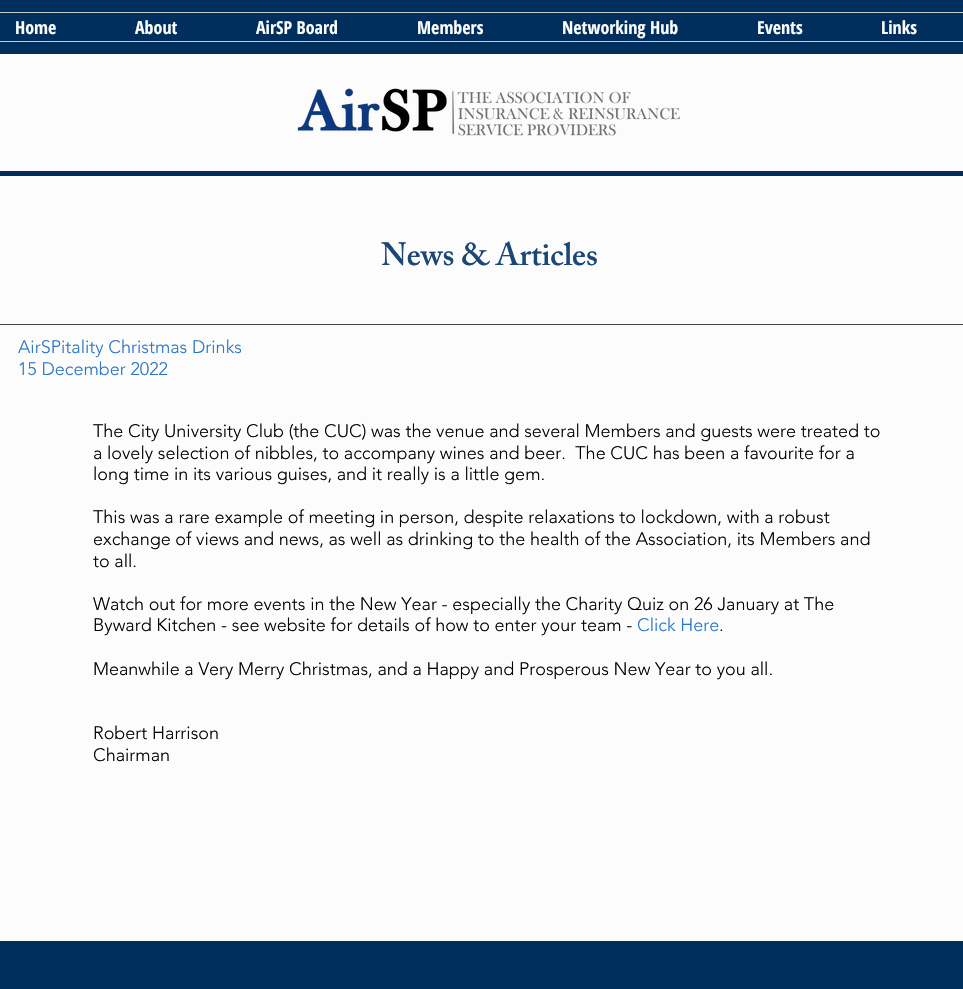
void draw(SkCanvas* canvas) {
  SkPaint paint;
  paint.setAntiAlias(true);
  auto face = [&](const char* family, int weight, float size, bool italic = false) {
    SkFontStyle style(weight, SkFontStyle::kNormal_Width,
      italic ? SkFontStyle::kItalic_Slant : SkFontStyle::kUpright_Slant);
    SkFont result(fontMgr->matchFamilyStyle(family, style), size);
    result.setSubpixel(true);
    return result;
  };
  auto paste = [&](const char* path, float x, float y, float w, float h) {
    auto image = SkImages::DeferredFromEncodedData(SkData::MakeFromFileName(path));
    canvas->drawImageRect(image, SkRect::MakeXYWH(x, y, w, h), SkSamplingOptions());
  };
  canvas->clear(0xfffbfcfb);
  {
    const struct { float x, y, w, h; SkColor color; } items[] = {
      {0, 0, 963, 54, 0xff002e5d},
      {0, 12, 963, 1, 0xffcacaca},
      {0, 41, 963, 1, 0xffcacaca},
    };
    for (auto [x, y, w, h, color] : items) {
      paint.setColor(color);
      canvas->drawRect(SkRect::MakeXYWH(x, y, w, h), paint);
    }
  }
  paste("img/1.png", 297, 88, 384, 48);
  {
    const struct { float x, y, w, h; SkColor color; } items[] = {
      {0, 171, 963, 5, 0xff002e5d},
      {0, 324, 963, 1, 0xff424242},
      {0, 941, 963, 48, 0xff002e5d},
    };
    for (auto [x, y, w, h, color] : items) {
      paint.setColor(color);
      canvas->drawRect(SkRect::MakeXYWH(x, y, w, h), paint);
    }
  }
  auto f0 = face("Open Sans Condensed", 700, 18);
  paint.setColor(0xfffbfcfb);
  {
    const struct { const char* s; float x, y; } items[] = {
      {"Home", 15, 34},
      {"About", 135, 34},
      {"AirSP Board", 256, 34},
      {"Members", 417, 34},
      {"Networking Hub", 562, 34},
      {"Events", 757, 34},
      {"Links", 881, 34},
    };
    for (auto [s, x, y] : items) {
      canvas->drawString(s, x, y, f0, paint);
    }
  }
  auto f1 = face("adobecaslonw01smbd", 600, 32);
  paint.setColor(0xff1b4777);
  canvas->drawString("News & Articles", 381, 265, f1, paint);
  auto f2 = face("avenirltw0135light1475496", 300, 18);
  paint.setColor(0xff2c75c5);
  canvas->drawString("AirSPitality Christmas Drinks", 18, 353, f2, paint);
  canvas->drawString("15 December 2022", 18, 375, f2, paint);
  paint.setColor(0xff050405);
  {
    const struct { const char* s; float x, y; } items[] = {
      {"The City University Club (the CUC) was the venue and several Members and guests were treated to", 93, 437},
      {"a lovely selection of nibbles, to accompany wines and beer.  The CUC has been a favourite for a", 93, 459},
      {"long time in its various guises, and it really is a little gem.", 93, 480},
      {"This was a rare example of meeting in person, despite relaxations to lockdown, with a robust", 93, 523},
      {"exchange of views and news, as well as drinking to the health of the Association, its Members and", 93, 545},
      {"to all.", 93, 567},
      {"Watch out for more events in the New Year - especially the Charity Quiz on 26 January at The", 93, 610},
      {"Byward Kitchen - see website for details of how to enter your team -", 93, 631},
    };
    for (auto [s, x, y] : items) {
      canvas->drawString(s, x, y, f2, paint);
    }
  }
  paint.setColor(0xff2c75c5);
  canvas->drawString("Click Here", 637, 631, f2, paint);
  paint.setColor(0xff050405);
  {
    const struct { const char* s; float x, y; } items[] = {
      {".", 719, 631},
      {"Meanwhile a Very Merry Christmas, and a Happy and Prosperous New Year to you all.", 93, 675},
      {"Robert Harrison", 93, 739},
      {"Chairman", 93, 761},
    };
    for (auto [s, x, y] : items) {
      canvas->drawString(s, x, y, f2, paint);
    }
  }
}
